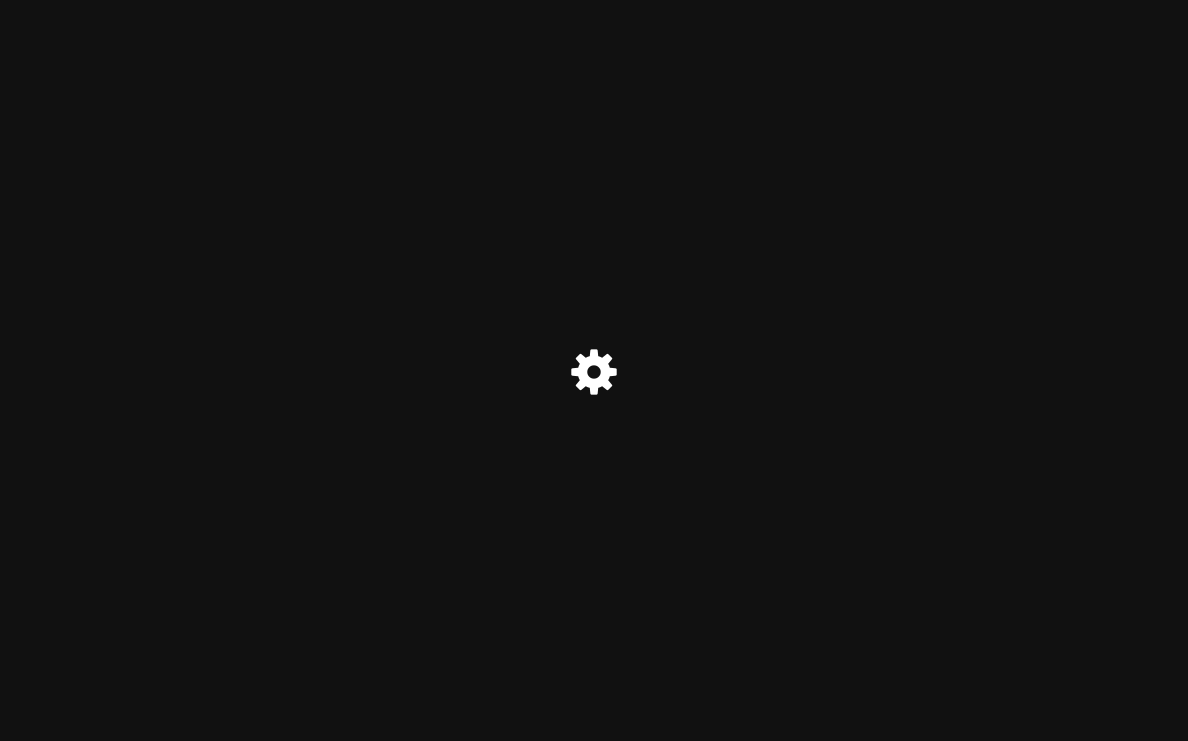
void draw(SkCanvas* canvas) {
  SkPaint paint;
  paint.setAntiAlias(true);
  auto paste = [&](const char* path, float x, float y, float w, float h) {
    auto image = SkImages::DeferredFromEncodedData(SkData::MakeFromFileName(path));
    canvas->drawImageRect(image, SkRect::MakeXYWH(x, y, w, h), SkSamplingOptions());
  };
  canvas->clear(0xff111111);
  paste("img/1.png", 571, 349, 46, 46);
}
